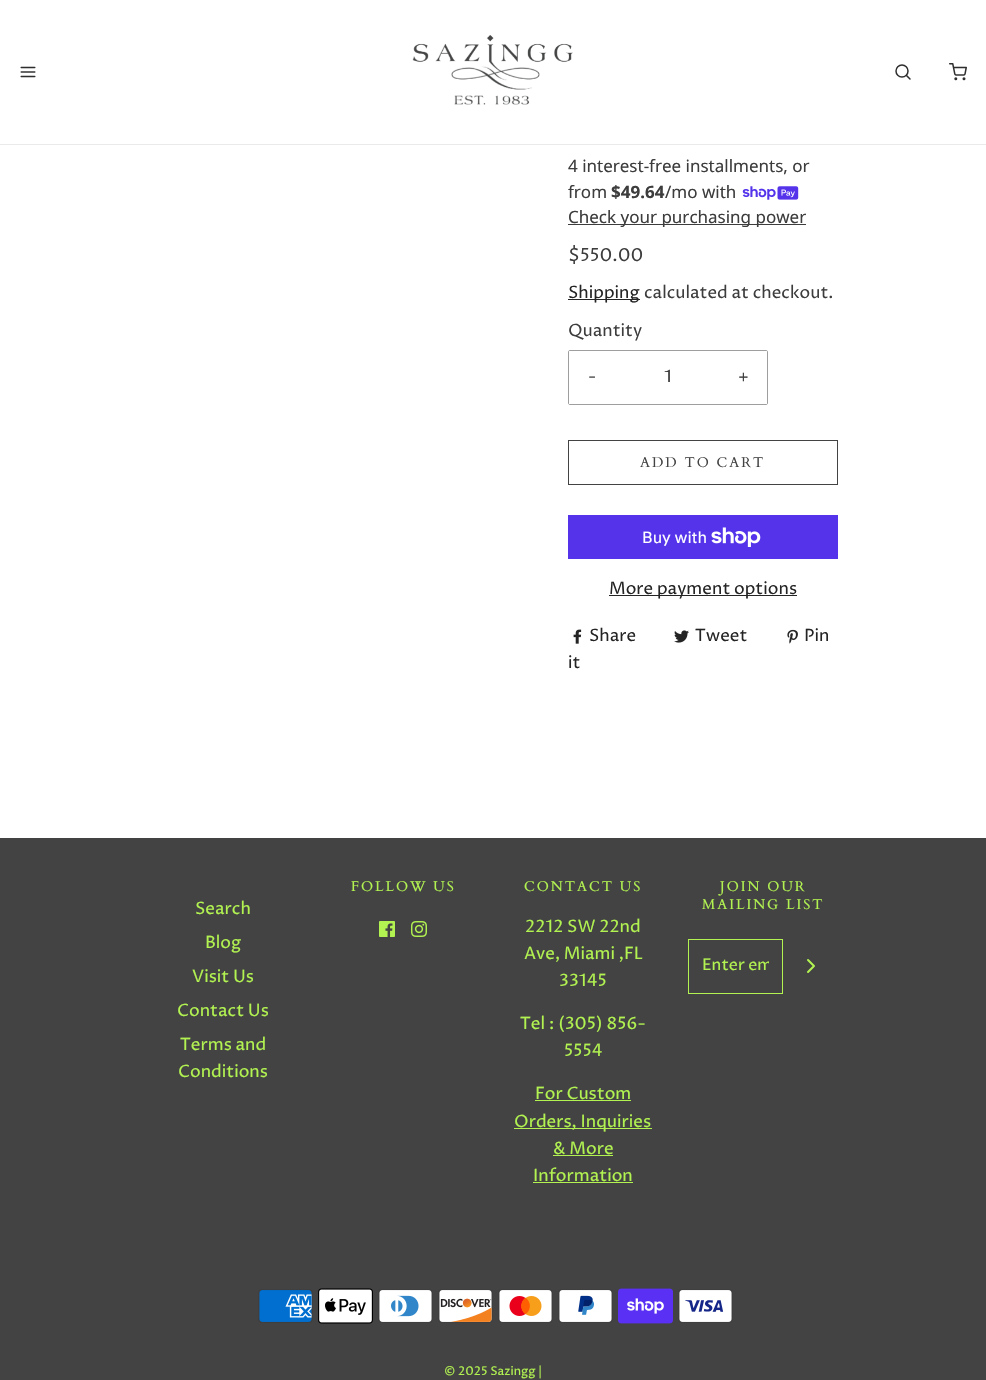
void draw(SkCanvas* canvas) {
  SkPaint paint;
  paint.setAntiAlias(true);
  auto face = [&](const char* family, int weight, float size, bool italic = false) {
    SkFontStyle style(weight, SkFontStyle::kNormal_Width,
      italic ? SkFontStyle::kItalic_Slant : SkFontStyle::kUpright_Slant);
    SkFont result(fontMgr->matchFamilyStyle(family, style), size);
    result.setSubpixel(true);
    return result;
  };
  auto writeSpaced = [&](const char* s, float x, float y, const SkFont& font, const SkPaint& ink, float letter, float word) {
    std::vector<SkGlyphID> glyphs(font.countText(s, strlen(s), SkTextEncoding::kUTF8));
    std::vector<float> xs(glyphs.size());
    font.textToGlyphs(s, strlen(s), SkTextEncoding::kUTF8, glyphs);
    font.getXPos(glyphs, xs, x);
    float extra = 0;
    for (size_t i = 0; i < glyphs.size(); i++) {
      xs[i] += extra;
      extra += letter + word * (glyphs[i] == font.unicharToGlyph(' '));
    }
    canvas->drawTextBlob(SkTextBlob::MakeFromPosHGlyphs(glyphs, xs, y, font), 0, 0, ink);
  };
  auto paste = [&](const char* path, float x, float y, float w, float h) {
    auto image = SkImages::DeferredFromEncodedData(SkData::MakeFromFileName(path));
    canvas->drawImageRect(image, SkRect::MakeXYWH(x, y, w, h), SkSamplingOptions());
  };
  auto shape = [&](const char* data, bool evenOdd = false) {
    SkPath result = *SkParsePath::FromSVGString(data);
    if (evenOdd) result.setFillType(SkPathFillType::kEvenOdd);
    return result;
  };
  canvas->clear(0xffffffff);
  paint.setColor(0xffeaeaea);
  canvas->drawRect(SkRect::MakeXYWH(0, 144, 986, 1), paint);
  paste("img/1.png", 20, 66, 16, 12);
  paste("img/2.png", 412, 35, 161, 70);
  paint.setStroke(true);
  paint.setStrokeWidth(1.5f);
  paint.setColor(0xff2e2e2e);
  canvas->drawCircle(902, 71, 6, paint);
  paint.setStrokeCap(SkPaint::kRound_Cap);
  paint.setStrokeJoin(SkPaint::kRound_Join);
  canvas->drawPath(shape("M910 79L906.5 75.5"), paint);
  paste("img/3.png", 949, 63, 18, 18);
  paste("img/4.png", 742, 186, 57, 14);
  paint.setStroke(false);
  paint.setColor(0xff3d3d3d);
  canvas->drawRect(SkRect::MakeXYWH(568, 224, 238, 1), paint);
  paint.setColor(0xff242424);
  canvas->drawRect(SkRect::MakeXYWH(568, 299, 72, 1), paint);
  paint.setStroke(true);
  paint.setStrokeWidth(1);
  paint.setStrokeCap(SkPaint::kButt_Cap);
  paint.setStrokeJoin(SkPaint::kMiter_Join);
  paint.setColor(0xff9e9e9e);
  canvas->drawRoundRect(SkRect::MakeXYWH(568.5f, 350.5f, 199, 54), 1.5f, 1.5f, paint);
  paint.setStroke(false);
  paint.setColor(0xffffffff);
  canvas->drawRect(SkRect::MakeXYWH(569, 351, 1, 53), paint);
  canvas->drawRect(SkRect::MakeXYWH(766, 351, 1, 53), paint);
  paint.setStroke(true);
  paint.setColor(0xff434343);
  canvas->drawRect(SkRect::MakeXYWH(568.5f, 440.5f, 269, 44), paint);
  paint.setStroke(false);
  paint.setColor(0xff5433eb);
  canvas->drawRect(SkRect::MakeXYWH(568, 515, 270, 44), paint);
  paste("img/5.png", 711, 527, 50, 20);
  paint.setColor(0xff242424);
  canvas->drawRect(SkRect::MakeXYWH(609, 595, 188, 1), paint);
  paste("img/6.png", 573, 629, 9, 15);
  paste("img/7.png", 674, 630, 15, 13);
  paste("img/8.png", 787, 629, 11, 15);
  paint.setColor(0xff434343);
  canvas->drawRect(SkRect::MakeXYWH(0, 838, 986, 542), paint);
  paste("img/9.png", 379, 921, 16, 16);
  paste("img/10.png", 411, 921, 16, 16);
  {
    const struct { float x, y, w, h; SkColor color; } items[] = {
      {535, 1100, 96, 1, 0xffb2f351},
      {514, 1128, 138, 1, 0xffb2f351},
      {553, 1155, 60, 1, 0xffb2f351},
      {533, 1182, 100, 1, 0xffb2f351},
    };
    for (auto [x, y, w, h, color] : items) {
      paint.setColor(color);
      canvas->drawRect(SkRect::MakeXYWH(x, y, w, h), paint);
    }
  }
  paint.setStroke(true);
  canvas->drawRect(SkRect::MakeXYWH(688.5f, 939.5f, 94, 54), paint);
  paint.setStrokeWidth(2);
  paint.setStrokeCap(SkPaint::kRound_Cap);
  paint.setStrokeJoin(SkPaint::kRound_Join);
  canvas->drawPath(shape("M808 972L814 966L808 960"), paint);
  paste("img/11.png", 258, 1289, 55, 34);
  paste("img/12.png", 318, 1288, 55, 36);
  paste("img/13.png", 378, 1289, 55, 34);
  paste("img/14.png", 438, 1289, 55, 34);
  paste("img/15.png", 498, 1289, 55, 34);
  paste("img/16.png", 558, 1289, 55, 34);
  paste("img/17.png", 618, 1288, 55, 36);
  paste("img/18.png", 678, 1289, 55, 34);
  auto f0 = face("Noto Sans", 400, 17);
  paint.setStroke(false);
  paint.setColor(0xff3d3d3d);
  canvas->drawString("4 interest-free installments, or", 568, 172, f0, paint);
  canvas->drawString("from", 568, 198, f0, paint);
  auto f1 = face("Noto Sans", 700, 17);
  canvas->drawString("$49.64", 611, 198, f1, paint);
  canvas->drawString("/mo with", 665, 198, f0, paint);
  canvas->drawString("Check your purchasing power", 568, 223, f0, paint);
  auto f2 = face("Proza Libre", 400, 18);
  canvas->drawString("$550.00", 568, 261, f2, paint);
  auto f3 = face("Proza Libre", 400, 17);
  paint.setColor(0xff242424);
  canvas->drawString("Shipping", 568, 298, f3, paint);
  paint.setColor(0xff3d3d3d);
  {
    const struct { const char* s; float x, y; } items[] = {
      {"calculated at checkout.", 644, 298},
      {"Quantity", 568, 336},
      {"-", 588, 382},
      {"1", 664, 382},
      {"+", 738, 382},
    };
    for (auto [s, x, y] : items) {
      canvas->drawString(s, x, y, f3, paint);
    }
  }
  auto f4 = face("Cardo", 400, 14);
  paint.setColor(0xff434343);
  writeSpaced("ADD TO CART", 640, 467, f4, paint, 2, 0);
  auto f5 = face("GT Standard", 400, 16);
  paint.setColor(0xffffffff);
  canvas->drawString("Buy with", 642, 543, f5, paint);
  paint.setColor(0xff242424);
  {
    const struct { const char* s; float x, y; } items[] = {
      {"More payment options", 609, 594},
      {"Share", 589, 641},
      {"Tweet", 695, 641},
      {"Pin", 804, 641},
      {"it", 568, 668},
    };
    for (auto [s, x, y] : items) {
      canvas->drawString(s, x, y, f3, paint);
    }
  }
  paint.setColor(0xffb2f351);
  {
    const struct { const char* s; float x, y; } items[] = {
      {"Search", 195, 914},
      {"Blog", 205, 948},
      {"Visit Us", 192, 982},
      {"Contact Us", 177, 1016},
      {"Terms and", 180, 1050},
      {"Conditions", 178, 1077},
    };
    for (auto [s, x, y] : items) {
      canvas->drawString(s, x, y, f3, paint);
    }
  }
  writeSpaced("FOLLOW US", 351, 891, f4, paint, 2, 0);
  writeSpaced("CONTACT US", 524, 891, f4, paint, 2, 0);
  {
    const struct { const char* s; float x, y; } items[] = {
      {"2212 SW 22nd", 525, 932},
      {"Ave, Miami ,FL", 524, 959},
      {"33145", 559, 986},
      {"Tel : (305) 856-", 520, 1029},
      {"5554", 564, 1056},
      {"For Custom", 535, 1099},
      {"Orders, Inquiries", 514, 1127},
      {"& More", 553, 1154},
      {"Information", 533, 1181},
    };
    for (auto [s, x, y] : items) {
      canvas->drawString(s, x, y, f3, paint);
    }
  }
  writeSpaced("JOIN OUR", 720, 891, f4, paint, 2, 0);
  writeSpaced("MAILING LIST", 702, 909, f4, paint, 2, 0);
  canvas->save();
  canvas->clipRect(SkRect::MakeXYWH(702, 954, 67, 22));
  auto f6 = face("Proza Libre", 400, 16);
  canvas->drawString("Enter em", 702, 970, f6, paint);
  canvas->restore();
  auto f7 = face("Proza Libre", 400, 12);
  canvas->drawString("© 2025 Sazingg |", 444, 1375, f7, paint);
}
